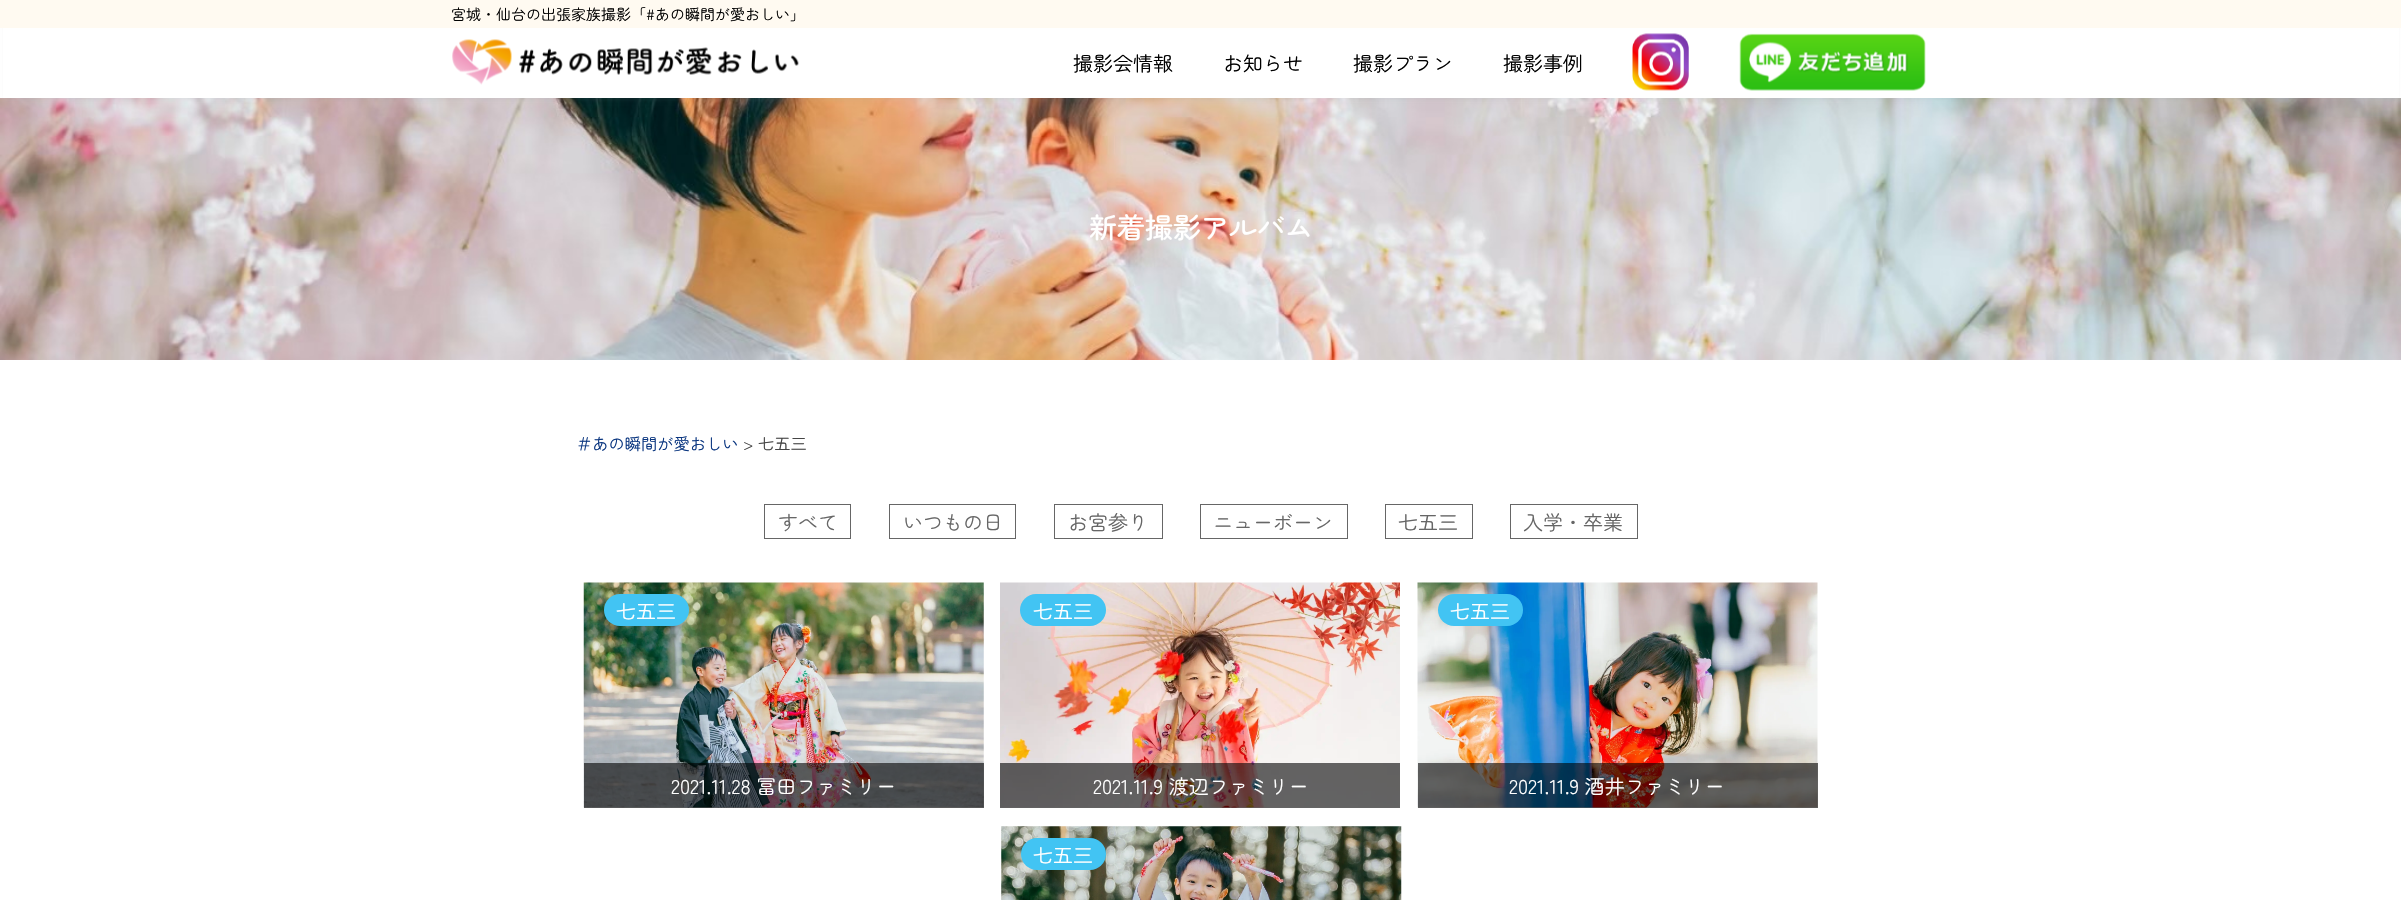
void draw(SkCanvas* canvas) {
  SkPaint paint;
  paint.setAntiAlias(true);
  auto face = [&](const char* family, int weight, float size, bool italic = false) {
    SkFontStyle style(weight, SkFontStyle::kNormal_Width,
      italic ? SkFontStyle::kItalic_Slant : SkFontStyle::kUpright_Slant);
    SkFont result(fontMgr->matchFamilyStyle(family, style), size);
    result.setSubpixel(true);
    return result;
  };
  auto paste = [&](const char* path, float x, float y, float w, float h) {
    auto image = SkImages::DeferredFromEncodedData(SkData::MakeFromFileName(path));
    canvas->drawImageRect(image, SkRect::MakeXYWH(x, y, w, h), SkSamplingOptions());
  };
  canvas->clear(0xffffffff);
  paste("img/4.png", 0, 98, 2401, 262);
  paint.setColor(0x1a8d9396);
  paint.setMaskFilter(SkMaskFilter::MakeBlur(kNormal_SkBlurStyle, 2));
  canvas->drawRect(SkRect::MakeXYWH(4, 10, 2394, 90), paint);
  paint.setMaskFilter(nullptr);
  paint.setColor(0xffffffff);
  canvas->drawRect(SkRect::MakeXYWH(3, 28, 2396, 70), paint);
  paint.setColor(0xfffffaf1);
  canvas->drawRect(SkRect::MakeXYWH(0, 0, 2401, 28), paint);
  paste("img/1.png", 452, 39, 347, 46);
  paste("img/2.png", 1632, 33, 57, 58);
  paste("img/3.png", 1739, 33, 187, 58);
  paint.setStroke(true);
  paint.setStrokeWidth(1);
  paint.setColor(0xff666666);
  canvas->drawRect(SkRect::MakeXYWH(764.5f, 504.5f, 86, 34), paint);
  canvas->drawRect(SkRect::MakeXYWH(889.5f, 504.5f, 126, 34), paint);
  canvas->drawRect(SkRect::MakeXYWH(1054.5f, 504.5f, 108, 34), paint);
  canvas->drawRect(SkRect::MakeXYWH(1200.5f, 504.5f, 147, 34), paint);
  canvas->drawRect(SkRect::MakeXYWH(1385.5f, 504.5f, 87, 34), paint);
  canvas->drawRect(SkRect::MakeXYWH(1510.5f, 504.5f, 127, 34), paint);
  paste("img/5.png", 583, 582, 401, 226);
  paint.setStroke(false);
  paint.setColor(0xff42c4f3);
  canvas->drawRoundRect(SkRect::MakeXYWH(604, 594, 85, 32), 16, 16, paint);
  paint.setColor(0x99000000);
  canvas->drawRect(SkRect::MakeXYWH(584, 763, 400, 45), paint);
  paste("img/6.png", 1000, 582, 400, 226);
  paint.setColor(0xff42c4f3);
  canvas->drawRoundRect(SkRect::MakeXYWH(1020, 594, 86, 32), 16, 16, paint);
  paint.setColor(0x99000000);
  canvas->drawRect(SkRect::MakeXYWH(1000, 763, 400, 45), paint);
  paste("img/7.png", 1417, 582, 401, 226);
  paint.setColor(0xff42c4f3);
  canvas->drawRoundRect(SkRect::MakeXYWH(1438, 594, 85, 32), 16, 16, paint);
  paint.setColor(0x99000000);
  canvas->drawRect(SkRect::MakeXYWH(1418, 763, 400, 45), paint);
  paste("img/8.png", 1001, 826, 401, 74);
  paint.setColor(0xff42c4f3);
  canvas->drawRoundRect(SkRect::MakeXYWH(1021, 838, 85, 32), 16, 16, paint);
  auto f0 = face("Zen Maru Gothic", 400, 15);
  paint.setColor(0xff000000);
  canvas->drawString("宮城・仙台の出張家族撮影「#あの瞬間が愛おしい」", 451, 20, f0, paint);
  auto f1 = face("Zen Maru Gothic", 400, 20);
  {
    const struct { const char* s; float x, y; } items[] = {
      {"撮影会情報", 1073, 71},
      {"お知らせ", 1223, 71},
      {"撮影プラン", 1353, 71},
      {"撮影事例", 1503, 71},
    };
    for (auto [s, x, y] : items) {
      canvas->drawString(s, x, y, f1, paint);
    }
  }
  auto f2 = face("Zen Maru Gothic", 500, 28);
  paint.setColor(0xffffffff);
  canvas->drawString("新着撮影アルバム", 1089, 238, f2, paint);
  auto f3 = face("Zen Maru Gothic", 400, 16.25f);
  paint.setColor(0xff09357f);
  canvas->drawString("＃あの瞬間が愛おしい", 576, 450, f3, paint);
  paint.setColor(0xff444444);
  canvas->drawString("> 七五三", 743, 450, f3, paint);
  paint.setColor(0xff666666);
  {
    const struct { const char* s; float x, y; } items[] = {
      {"すべて", 778, 530},
      {"いつもの日", 903, 530},
      {"お宮参り", 1068, 530},
      {"ニューボーン", 1213, 530},
      {"七五三", 1398, 530},
      {"入学・卒業", 1523, 530},
    };
    for (auto [s, x, y] : items) {
      canvas->drawString(s, x, y, f1, paint);
    }
  }
  paint.setColor(0xffffffff);
  {
    const struct { const char* s; float x, y; } items[] = {
      {"七五三", 616, 619},
      {"2021.11.28 冨田ファミリー", 671, 794},
      {"七五三", 1033, 619},
      {"2021.11.9 渡辺ファミリー", 1093, 794},
      {"七五三", 1450, 619},
      {"2021.11.9 酒井ファミリー", 1509, 794},
      {"七五三", 1033, 863},
    };
    for (auto [s, x, y] : items) {
      canvas->drawString(s, x, y, f1, paint);
    }
  }
}
